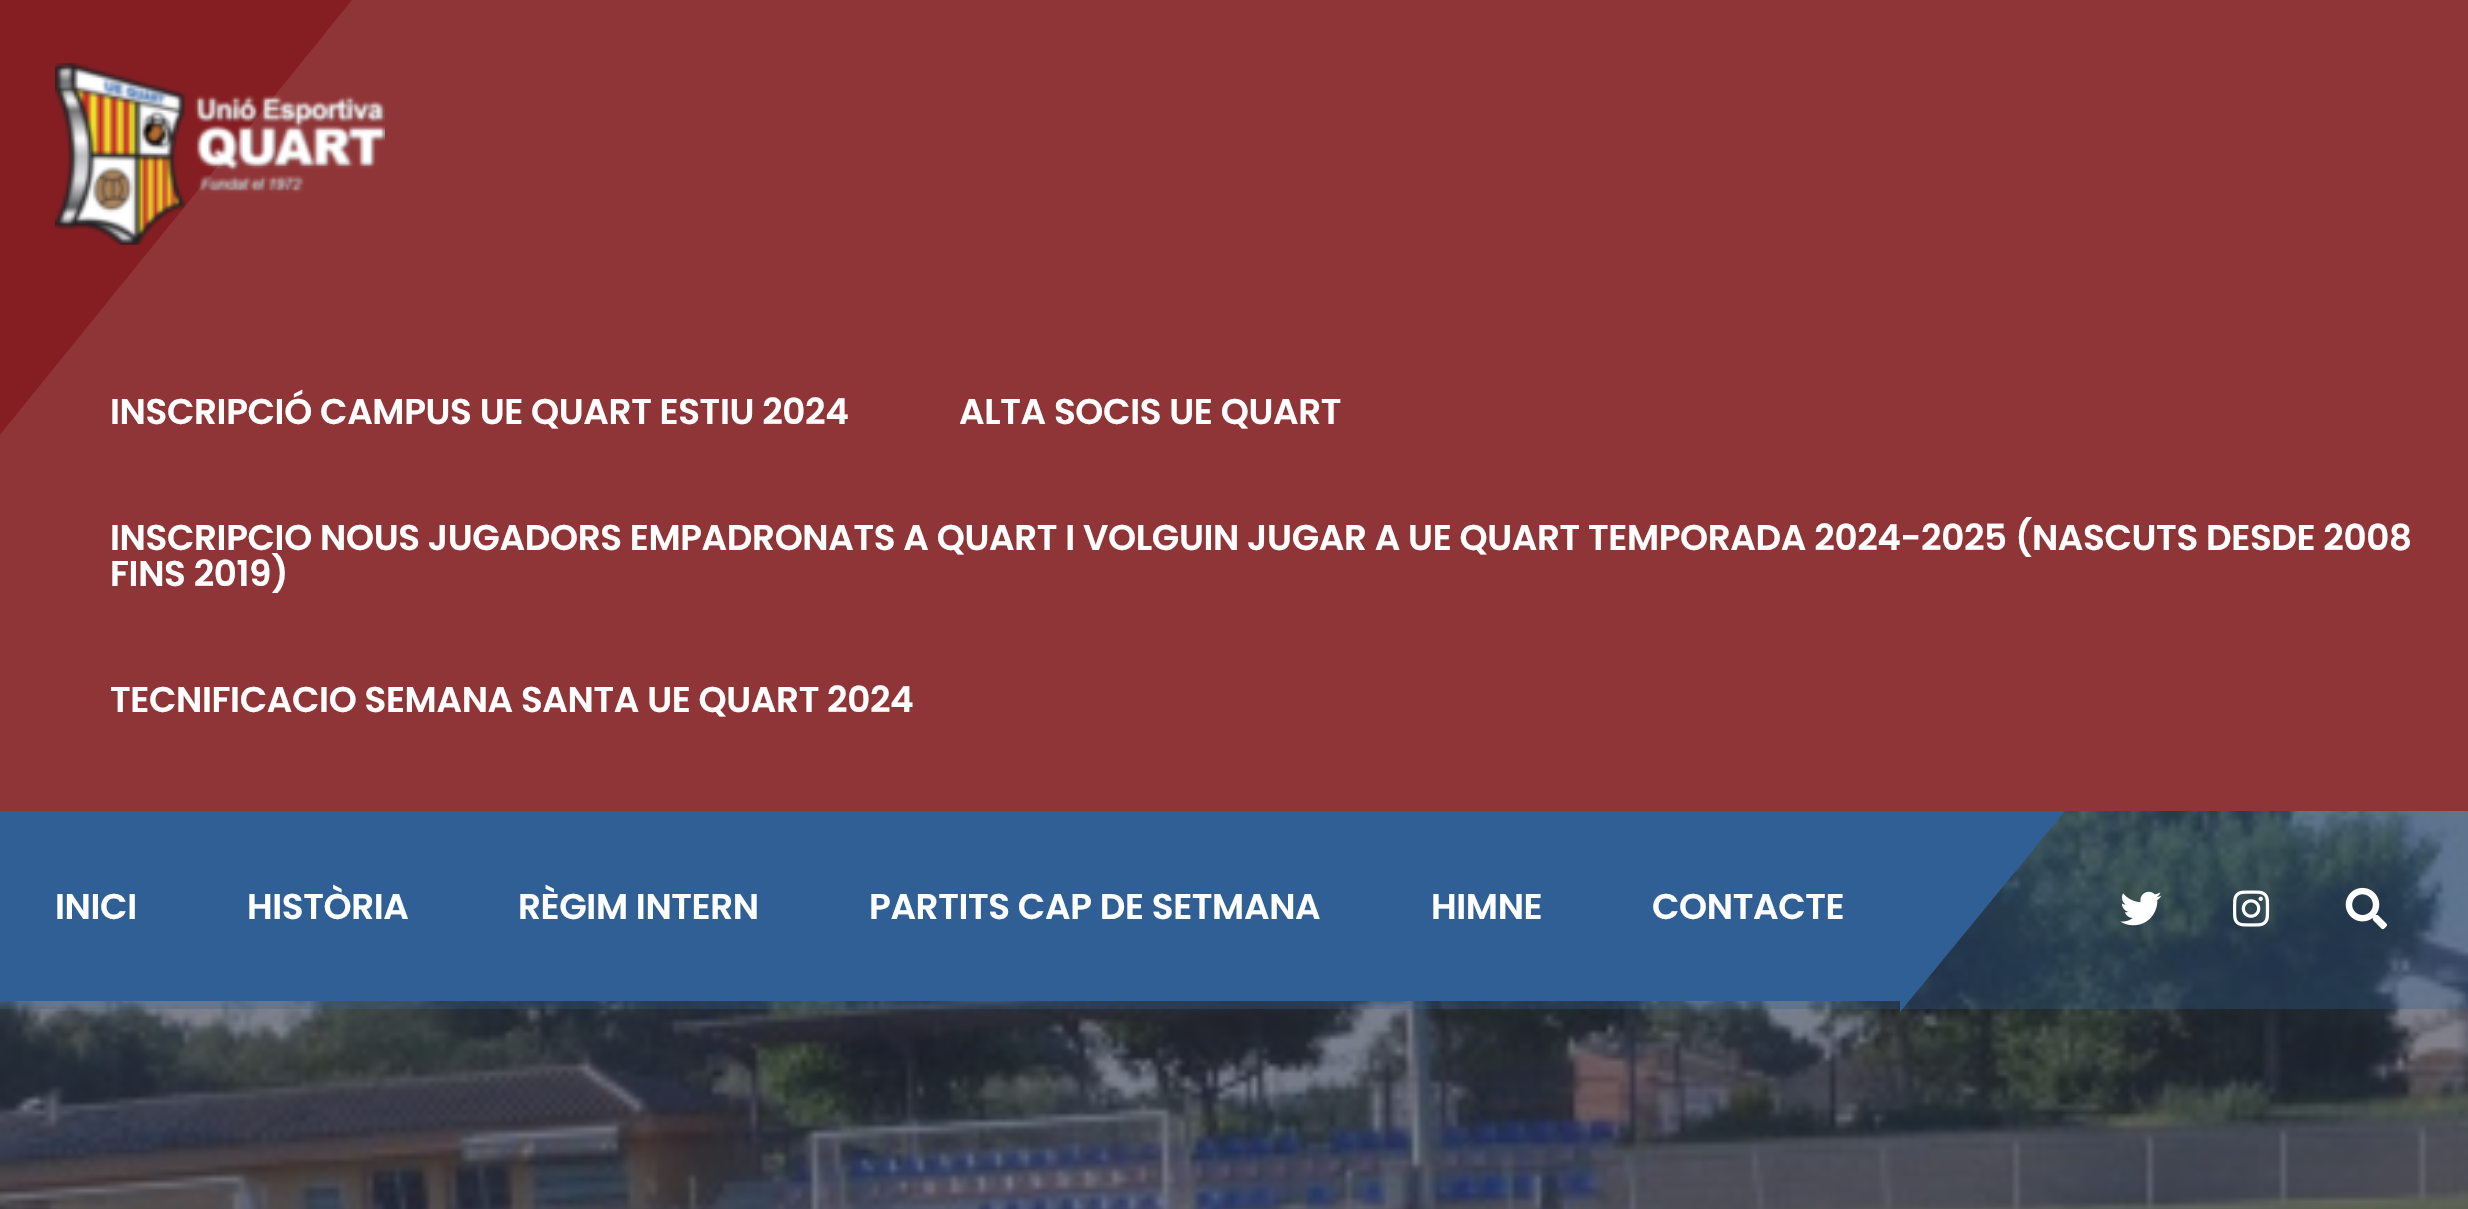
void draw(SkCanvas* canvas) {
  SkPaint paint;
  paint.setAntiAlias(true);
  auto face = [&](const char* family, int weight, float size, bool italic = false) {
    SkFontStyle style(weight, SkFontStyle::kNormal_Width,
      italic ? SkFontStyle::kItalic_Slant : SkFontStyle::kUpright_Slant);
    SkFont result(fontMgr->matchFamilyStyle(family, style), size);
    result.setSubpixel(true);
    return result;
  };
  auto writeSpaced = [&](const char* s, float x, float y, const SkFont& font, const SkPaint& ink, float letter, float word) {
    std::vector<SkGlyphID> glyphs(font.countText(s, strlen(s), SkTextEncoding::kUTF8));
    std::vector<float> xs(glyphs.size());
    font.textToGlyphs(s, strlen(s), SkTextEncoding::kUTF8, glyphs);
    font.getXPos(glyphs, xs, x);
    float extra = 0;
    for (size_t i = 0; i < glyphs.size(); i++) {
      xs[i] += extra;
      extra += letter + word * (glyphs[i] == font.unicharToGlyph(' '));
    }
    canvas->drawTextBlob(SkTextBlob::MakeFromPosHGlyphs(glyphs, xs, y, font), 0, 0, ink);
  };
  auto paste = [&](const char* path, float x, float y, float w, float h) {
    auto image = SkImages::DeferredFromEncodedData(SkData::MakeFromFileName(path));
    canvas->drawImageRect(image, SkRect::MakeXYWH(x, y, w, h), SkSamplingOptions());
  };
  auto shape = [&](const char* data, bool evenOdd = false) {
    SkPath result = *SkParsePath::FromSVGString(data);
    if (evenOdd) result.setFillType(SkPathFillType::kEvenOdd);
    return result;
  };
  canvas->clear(0xff2a2a3f);
  paint.setColor(0xff851e22);
  canvas->drawRect(SkRect::MakeXYWH(0, 0, 353, 435), paint);
  canvas->save();
  canvas->clipRect(SkRect::MakeXYWH(0, 0, 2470, 811));
  paint.setColor(0xff903537);
  canvas->drawPath(shape("M1425-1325L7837 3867L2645 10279L-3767 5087Z"), paint);
  canvas->restore();
  paste("img/1.png", 55, 63, 330, 182);
  paste("img/2.png", 0, 811, 2468, 398);
  paint.setColor(0x4d305f96);
  canvas->drawRect(SkRect::MakeXYWH(0, 811, 2468, 198), paint);
  paint.setColor(0xff305f96);
  canvas->drawRect(SkRect::MakeXYWH(0, 811, 1900, 190), paint);
  canvas->drawPath(shape("M1900 811H2065L1900 1012Z"), paint);
  paste("img/3.png", 2120, 891, 42, 35);
  paste("img/4.png", 2233, 890, 37, 37);
  paste("img/5.png", 2345, 887, 42, 43);
  auto f0 = face("Poppins", 600, 35.75f);
  paint.setColor(0xffffffff);
  {
    const struct { const char* s; float x, y; } items[] = {
      {"INSCRIPCIÓ CAMPUS UE QUART ESTIU 2024", 110, 424},
      {"ALTA SOCIS UE QUART", 959, 424},
      {"INSCRIPCIO NOUS JUGADORS EMPADRONATS A QUART I VOLGUIN JUGAR A UE QUART TEMPORADA 2024-2025 (NASCUTS DESDE 2008", 110, 550},
      {"FINS 2019)", 110, 586},
      {"TECNIFICACIO SEMANA SANTA UE QUART 2024", 110, 712},
      {"INICI", 55, 919},
      {"HISTÒRIA", 247, 919},
      {"RÈGIM INTERN", 518, 919},
      {"PARTITS CAP DE SETMANA", 869, 919},
      {"HIMNE", 1431, 919},
      {"CONTACTE", 1652, 919},
    };
    for (auto [s, x, y] : items) {
      writeSpaced(s, x, y, f0, paint, -0.36f, 0);
    }
  }
}
